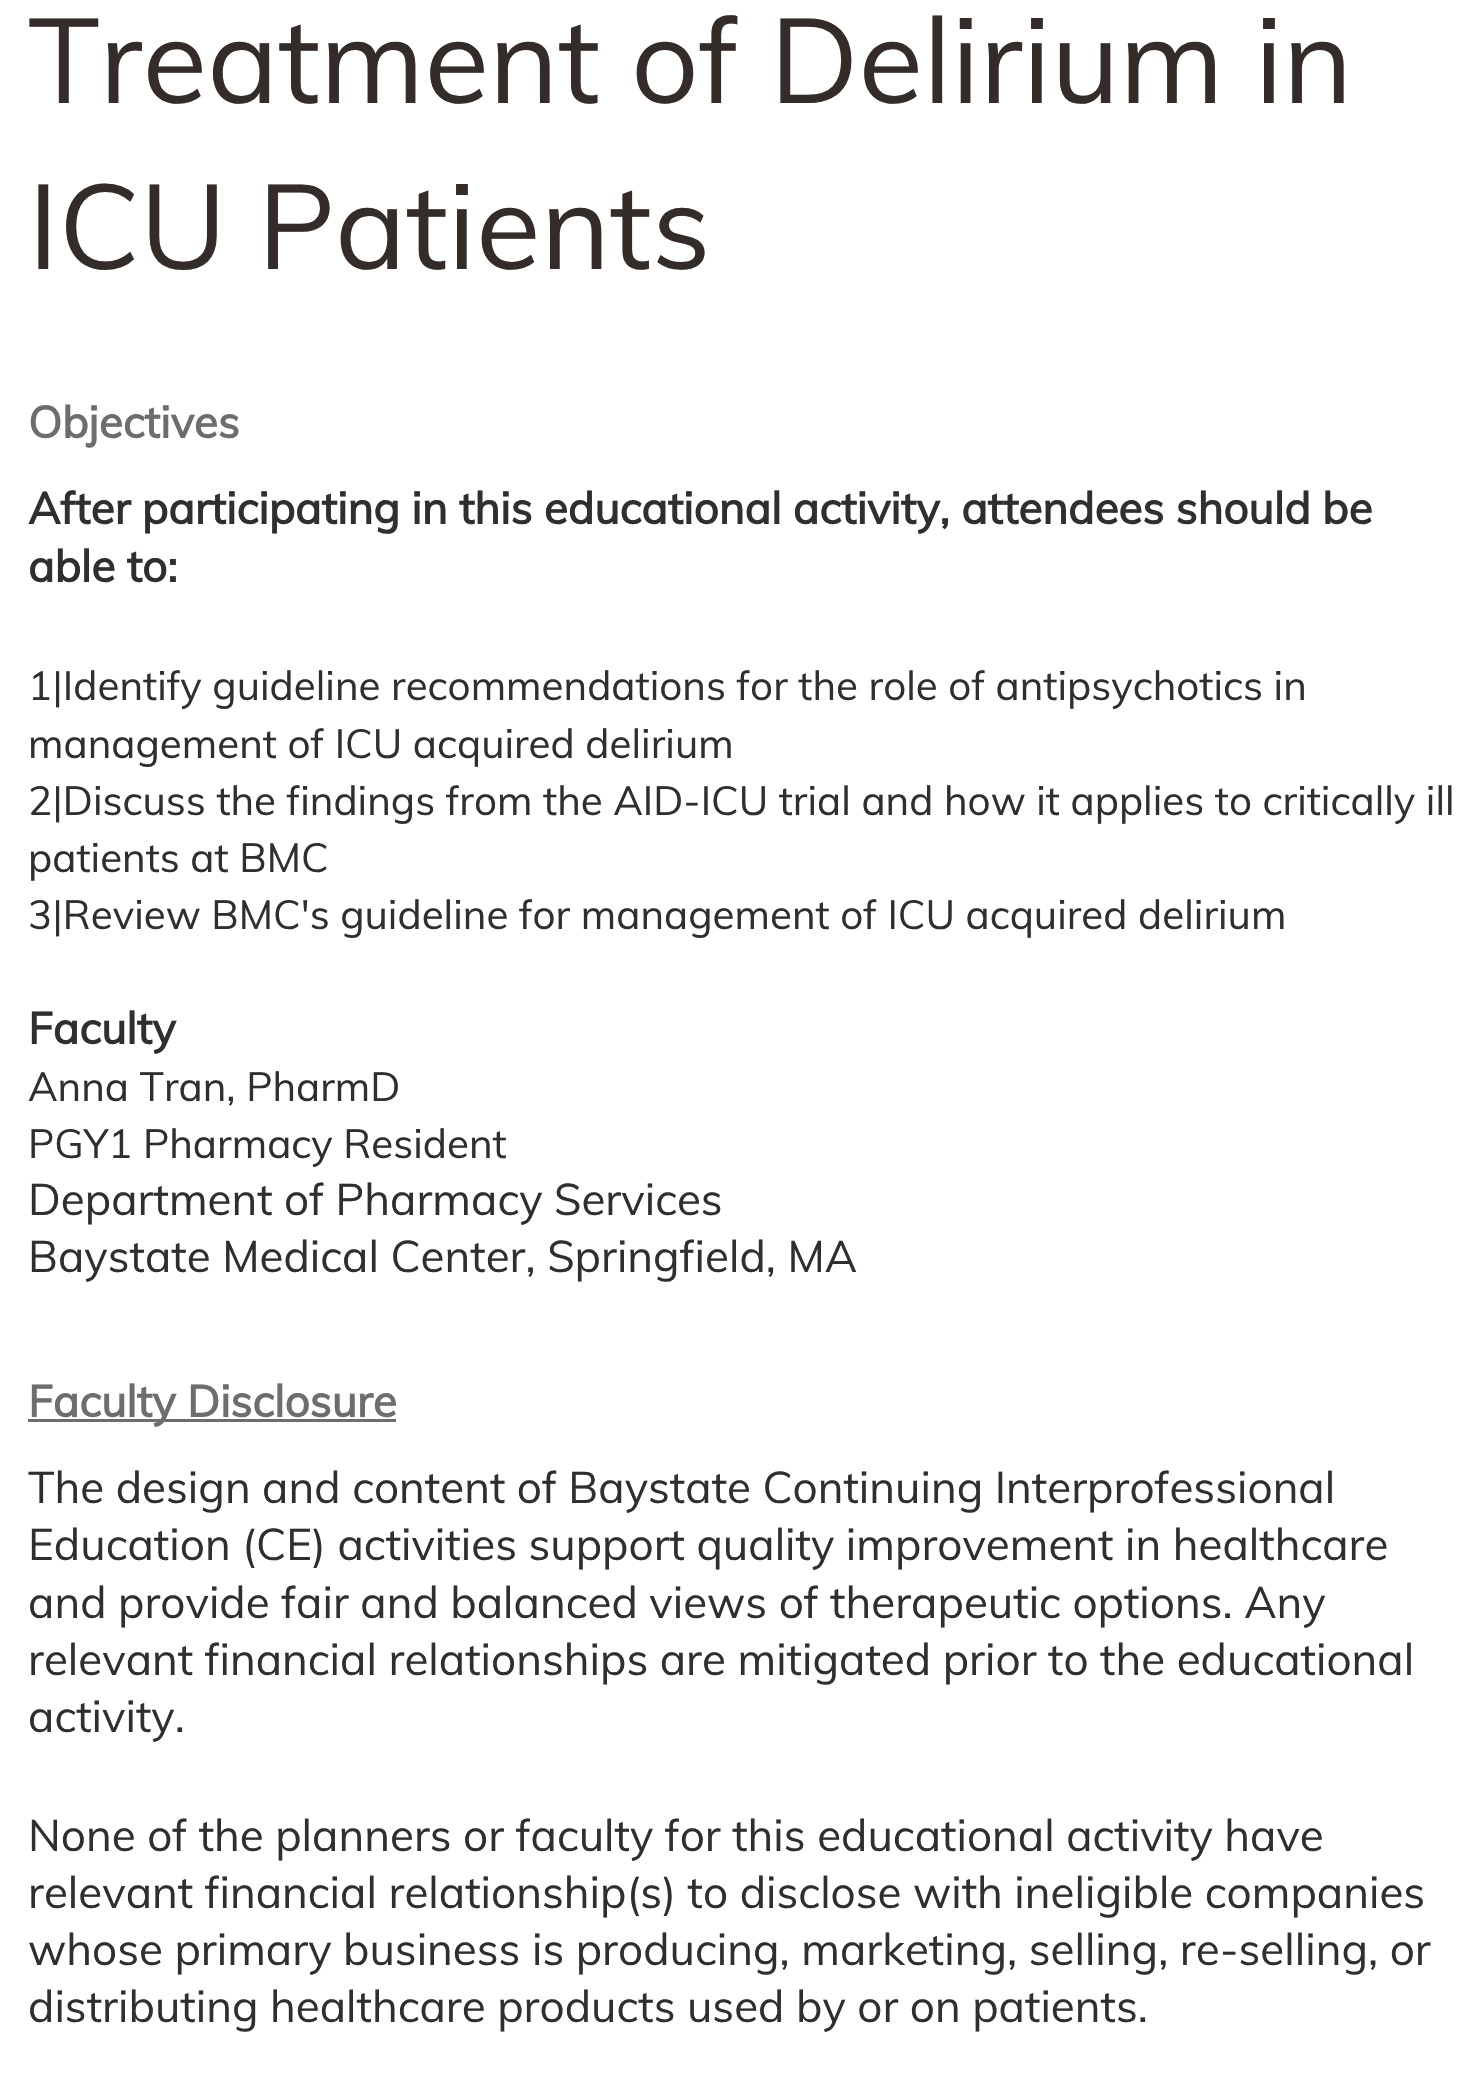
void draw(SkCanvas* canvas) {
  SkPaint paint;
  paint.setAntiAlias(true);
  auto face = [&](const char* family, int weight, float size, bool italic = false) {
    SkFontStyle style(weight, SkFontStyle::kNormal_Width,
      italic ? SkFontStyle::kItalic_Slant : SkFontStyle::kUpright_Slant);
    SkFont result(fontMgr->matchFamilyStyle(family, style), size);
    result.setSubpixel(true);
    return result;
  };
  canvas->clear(0xffffffff);
  paint.setColor(0xff6d6d6d);
  canvas->drawRect(SkRect::MakeXYWH(28, 1419, 368, 3), paint);
  auto f0 = face("Muli", 400, 118.75f);
  paint.setColor(0xff342c29);
  canvas->drawString("Treatment of Delirium in", 28, 103, f0, paint);
  canvas->drawString("ICU Patients", 28, 269, f0, paint);
  auto f1 = face("Muli", 700, 44);
  paint.setColor(0xff6d6d6d);
  canvas->drawString("Objectives", 28, 438, f1, paint);
  paint.setColor(0xff2f2f2f);
  canvas->drawString("After participating in this educational activity, attendees should be", 28, 524, f1, paint);
  canvas->drawString("able to:", 28, 582, f1, paint);
  auto f2 = face("Muli", 400, 40.35f);
  {
    const struct { const char* s; float x, y; } items[] = {
      {"1|Identify guideline recommendations for the role of antipsychotics in", 28, 700},
      {"management of ICU acquired delirium", 28, 758},
      {"2|Discuss the findings from the AID-ICU trial and how it applies to critically ill", 28, 815},
      {"patients at BMC", 28, 872},
      {"3|Review BMC's guideline for management of ICU acquired delirium", 28, 929},
    };
    for (auto [s, x, y] : items) {
      canvas->drawString(s, x, y, f2, paint);
    }
  }
  canvas->drawString("Faculty", 28, 1044, f1, paint);
  canvas->drawString("Anna Tran, PharmD", 28, 1101, f2, paint);
  canvas->drawString("PGY1 Pharmacy Resident", 28, 1158, f2, paint);
  auto f3 = face("Muli", 400, 44);
  canvas->drawString("Department of Pharmacy Services", 28, 1215, f3, paint);
  canvas->drawString("Baystate Medical Center, Springfield, MA", 28, 1272, f3, paint);
  paint.setColor(0xff6d6d6d);
  canvas->drawString("Faculty Disclosure", 28, 1417, f1, paint);
  paint.setColor(0xff2f2f2f);
  {
    const struct { const char* s; float x, y; } items[] = {
      {"The design and content of Baystate Continuing Interprofessional", 28, 1503},
      {"Education (CE) activities support quality improvement in healthcare", 28, 1560},
      {"and provide fair and balanced views of therapeutic options. Any", 28, 1618},
      {"relevant financial relationships are mitigated prior to the educational", 28, 1675},
      {"activity.", 28, 1732},
      {"None of the planners or faculty for this educational activity have", 28, 1851},
      {"relevant financial relationship(s) to disclose with ineligible companies", 28, 1908},
      {"whose primary business is producing, marketing, selling, re-selling, or", 28, 1965},
      {"distributing healthcare products used by or on patients.", 28, 2022},
    };
    for (auto [s, x, y] : items) {
      canvas->drawString(s, x, y, f3, paint);
    }
  }
}
